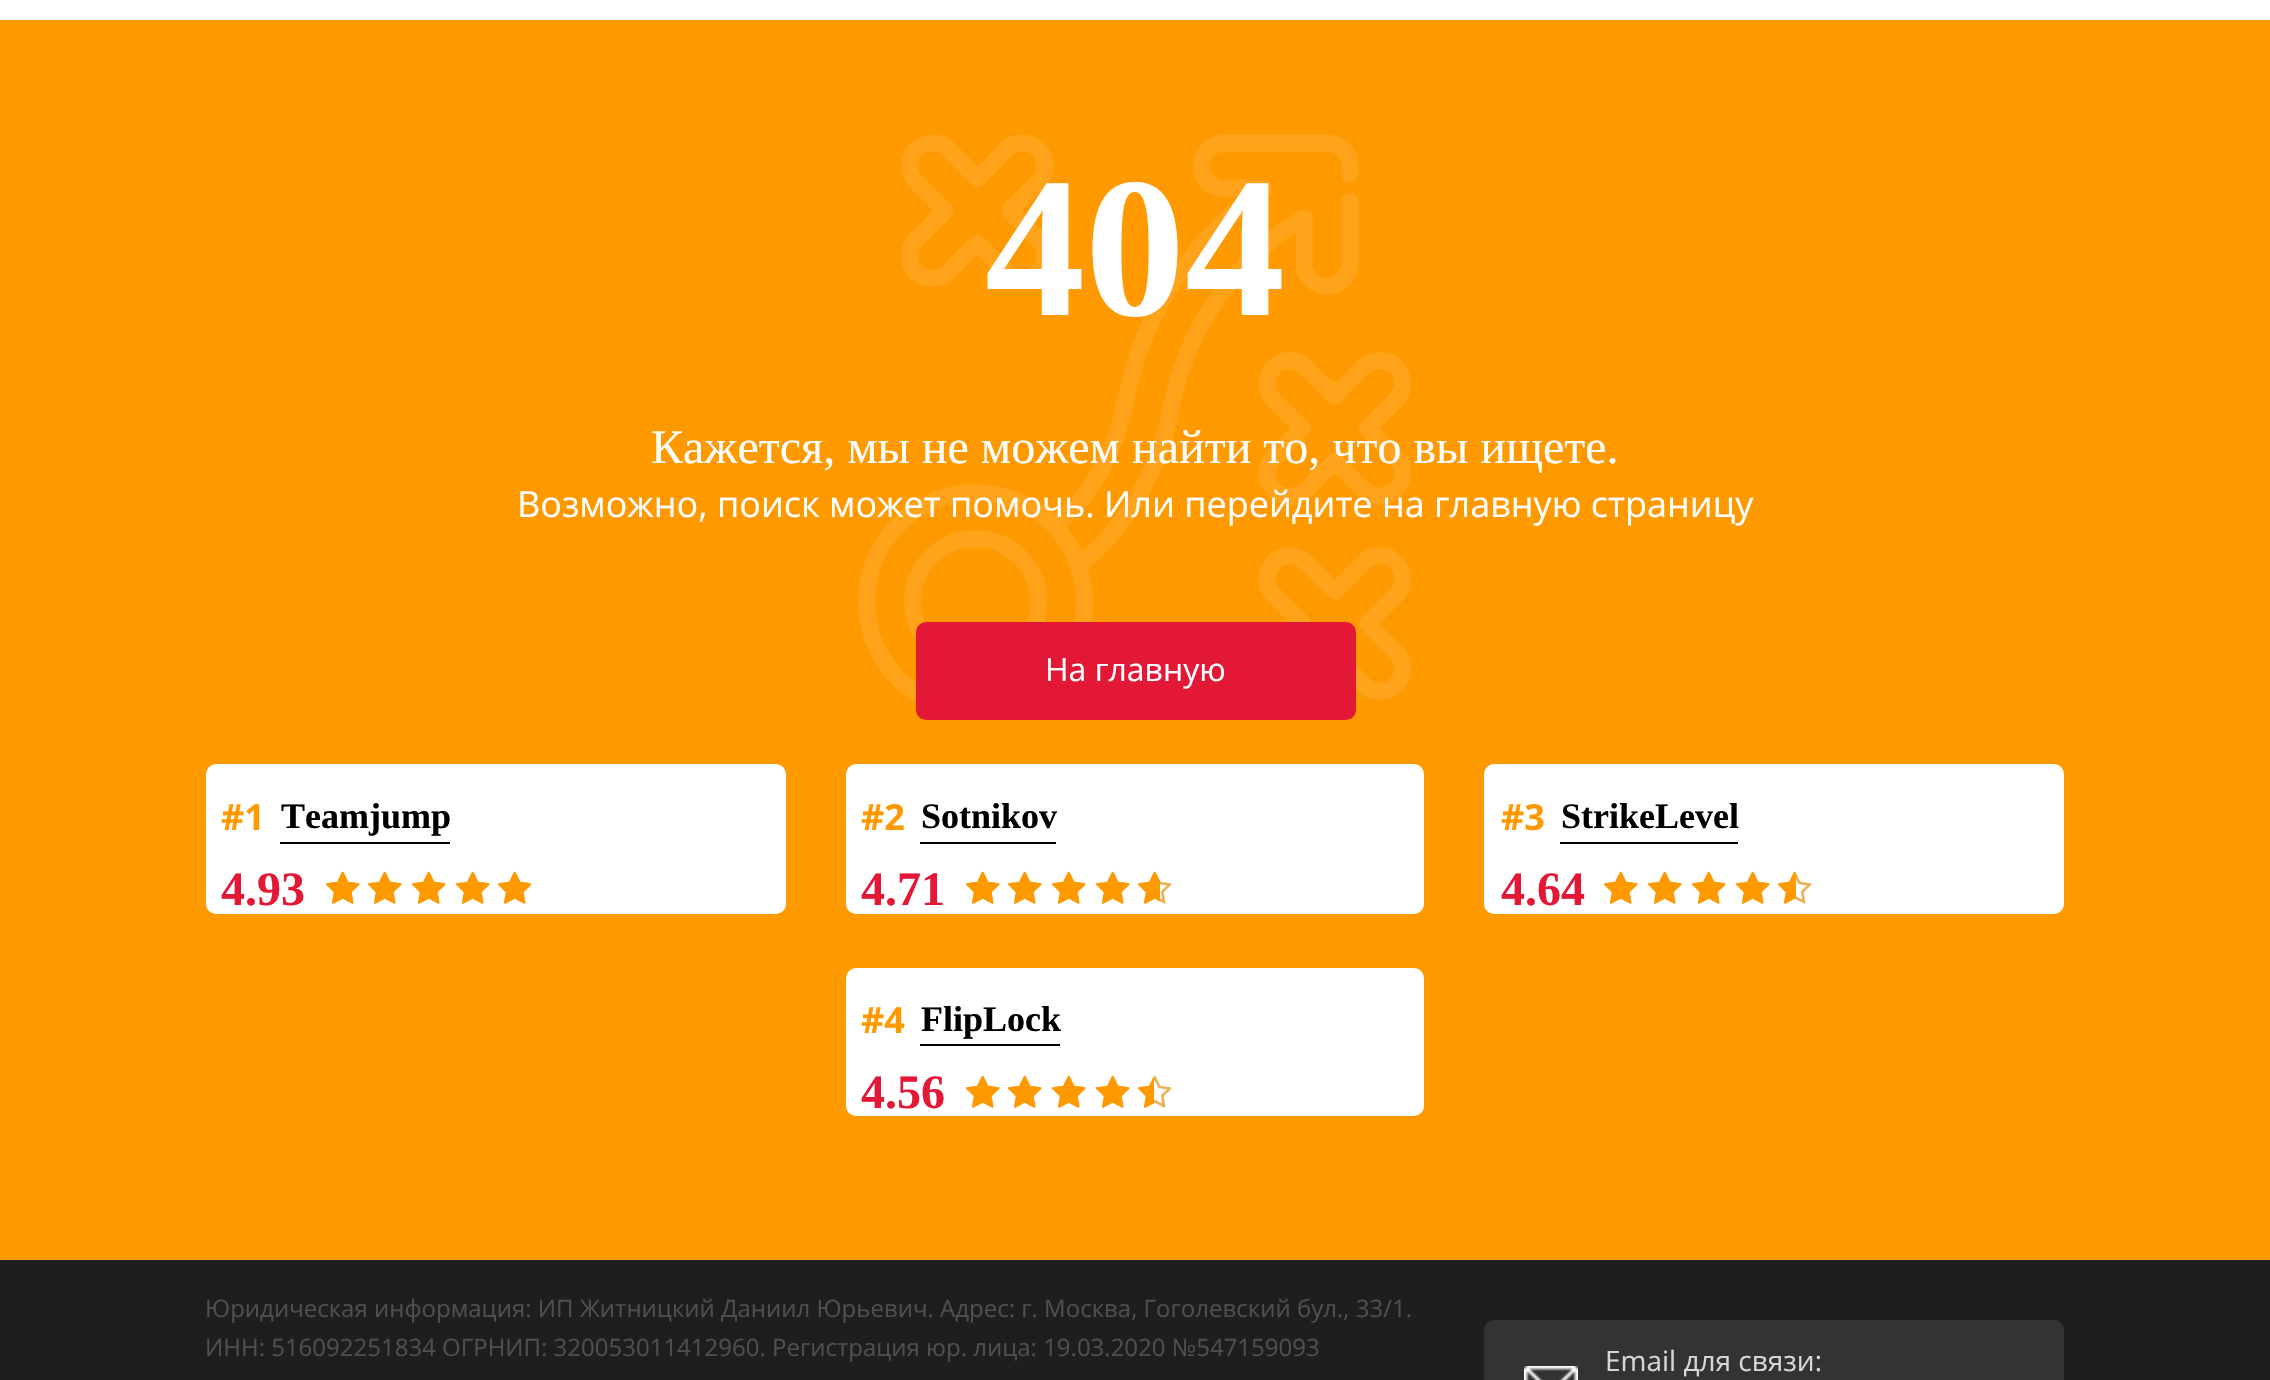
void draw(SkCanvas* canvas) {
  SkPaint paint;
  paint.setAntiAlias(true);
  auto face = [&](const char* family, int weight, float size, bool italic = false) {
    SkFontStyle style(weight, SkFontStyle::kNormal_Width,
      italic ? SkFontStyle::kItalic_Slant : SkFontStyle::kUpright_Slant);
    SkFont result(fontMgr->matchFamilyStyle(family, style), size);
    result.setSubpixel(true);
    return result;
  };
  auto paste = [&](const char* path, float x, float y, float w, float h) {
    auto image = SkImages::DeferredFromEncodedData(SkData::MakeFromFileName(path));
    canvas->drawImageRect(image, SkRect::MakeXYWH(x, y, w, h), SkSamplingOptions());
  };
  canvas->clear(0xffffffff);
  paint.setColor(0xffff9900);
  canvas->drawRect(SkRect::MakeXYWH(0, 20, 2270, 1240), paint);
  paste("img/1.png", 858, 134, 554, 569);
  paint.setColor(0xffe31837);
  canvas->drawRoundRect(SkRect::MakeXYWH(916, 622, 440, 98), 10, 10, paint);
  paint.setColor(0xffffffff);
  canvas->drawRoundRect(SkRect::MakeXYWH(206, 764, 580, 150), 10, 10, paint);
  paint.setColor(0xff000000);
  canvas->drawRect(SkRect::MakeXYWH(280, 842, 170, 2), paint);
  paste("img/2.png", 326, 871, 34, 33);
  paste("img/2.png", 368, 871, 34, 33);
  paste("img/2.png", 412, 871, 34, 33);
  paste("img/2.png", 456, 871, 34, 33);
  paste("img/2.png", 498, 871, 34, 33);
  paste("img/3.png", 326, 872, 34, 32);
  paste("img/3.png", 368, 872, 34, 32);
  paste("img/3.png", 412, 872, 34, 32);
  paste("img/3.png", 456, 872, 34, 32);
  paste("img/4.png", 498, 872, 32, 32);
  paint.setColor(0xffffffff);
  canvas->drawRoundRect(SkRect::MakeXYWH(846, 764, 578, 150), 10, 10, paint);
  paint.setColor(0xff000000);
  canvas->drawRect(SkRect::MakeXYWH(920, 842, 136, 2), paint);
  paste("img/2.png", 966, 871, 34, 33);
  paste("img/2.png", 1008, 871, 34, 33);
  paste("img/2.png", 1052, 871, 34, 33);
  paste("img/2.png", 1096, 871, 34, 33);
  paste("img/2.png", 1138, 871, 34, 33);
  paste("img/3.png", 966, 872, 34, 32);
  paste("img/3.png", 1008, 872, 34, 32);
  paste("img/3.png", 1052, 872, 34, 32);
  paste("img/3.png", 1096, 872, 34, 32);
  paste("img/5.png", 1138, 872, 22, 32);
  paint.setColor(0xffffffff);
  canvas->drawRoundRect(SkRect::MakeXYWH(1484, 764, 580, 150), 10, 10, paint);
  paint.setColor(0xff000000);
  canvas->drawRect(SkRect::MakeXYWH(1560, 842, 178, 2), paint);
  paste("img/2.png", 1604, 871, 34, 33);
  paste("img/2.png", 1648, 871, 34, 33);
  paste("img/2.png", 1692, 871, 34, 33);
  paste("img/2.png", 1736, 871, 34, 33);
  paste("img/2.png", 1778, 871, 34, 33);
  paste("img/3.png", 1604, 872, 34, 32);
  paste("img/3.png", 1648, 872, 34, 32);
  paste("img/3.png", 1692, 872, 34, 32);
  paste("img/3.png", 1736, 872, 34, 32);
  paste("img/6.png", 1778, 872, 18, 32);
  paint.setColor(0xffffffff);
  canvas->drawRoundRect(SkRect::MakeXYWH(846, 968, 578, 148), 10, 10, paint);
  paint.setColor(0xff000000);
  canvas->drawRect(SkRect::MakeXYWH(920, 1044, 140, 2), paint);
  paste("img/2.png", 966, 1075, 34, 33);
  paste("img/2.png", 1008, 1075, 34, 33);
  paste("img/2.png", 1052, 1075, 34, 33);
  paste("img/2.png", 1096, 1075, 34, 33);
  paste("img/2.png", 1138, 1075, 34, 33);
  paste("img/3.png", 966, 1076, 34, 32);
  paste("img/3.png", 1008, 1076, 34, 32);
  paste("img/3.png", 1052, 1076, 34, 32);
  paste("img/3.png", 1096, 1076, 34, 32);
  paste("img/7.png", 1138, 1076, 16, 32);
  paint.setColor(0xff1e1e1e);
  canvas->drawRect(SkRect::MakeXYWH(0, 1260, 2270, 120), paint);
  paint.setColor(0xff333333);
  canvas->drawRoundRect(SkRect::MakeXYWH(1484, 1320, 580, 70), 10, 10, paint);
  paste("img/8.png", 1524, 1366, 54, 14);
  auto f0 = face("Liberation Serif", 700, 200);
  paint.setColor(0xffffffff);
  canvas->drawString("404", 985, 315, f0, paint);
  auto f1 = face("Liberation Serif", 400, 48);
  canvas->drawString("Кажется, мы не можем найти то, что вы ищете.", 651, 463, f1, paint);
  auto f2 = face("Open Sans", 400, 36);
  canvas->drawString("Возможно, поиск может помочь. Или перейдите на главную страницу", 517, 517, f2, paint);
  auto f3 = face("Open Sans", 400, 32);
  canvas->drawString("На главную", 1045, 681, f3, paint);
  auto f4 = face("Open Sans", 700, 36);
  paint.setColor(0xffff9900);
  canvas->drawString("#1", 221, 830, f4, paint);
  auto f5 = face("Liberation Serif", 700, 36);
  paint.setColor(0xff000000);
  canvas->drawString("Teamjump", 281, 828, f5, paint);
  auto f6 = face("Liberation Serif", 700, 48);
  paint.setColor(0xffe31837);
  canvas->drawString("4.93", 221, 905, f6, paint);
  paint.setColor(0xffff9900);
  canvas->drawString("#2", 861, 830, f4, paint);
  paint.setColor(0xff000000);
  canvas->drawString("Sotnikov", 921, 828, f5, paint);
  paint.setColor(0xffe31837);
  canvas->drawString("4.71", 861, 905, f6, paint);
  paint.setColor(0xffff9900);
  canvas->drawString("#3", 1501, 830, f4, paint);
  paint.setColor(0xff000000);
  canvas->drawString("StrikeLevel", 1561, 828, f5, paint);
  paint.setColor(0xffe31837);
  canvas->drawString("4.64", 1501, 905, f6, paint);
  paint.setColor(0xffff9900);
  canvas->drawString("#4", 861, 1033, f4, paint);
  paint.setColor(0xff000000);
  canvas->drawString("FlipLock", 921, 1031, f5, paint);
  paint.setColor(0xffe31837);
  canvas->drawString("4.56", 861, 1108, f6, paint);
  auto f7 = face("Open Sans", 400, 24);
  paint.setColor(0xff4f4f4f);
  canvas->drawString("Юридическая информация: ИП Житницкий Даниил Юрьевич. Адрес: г. Москва, Гоголевский бул., 33/1.", 205, 1317, f7, paint);
  canvas->drawString("ИНН: 516092251834 ОГРНИП: 320053011412960. Регистрация юр. лица: 19.03.2020 №547159093", 205, 1356, f7, paint);
  auto f8 = face("Open Sans", 400, 28);
  paint.setColor(0xffd6d6d6);
  canvas->drawString("Email для связи:", 1605, 1371, f8, paint);
}
